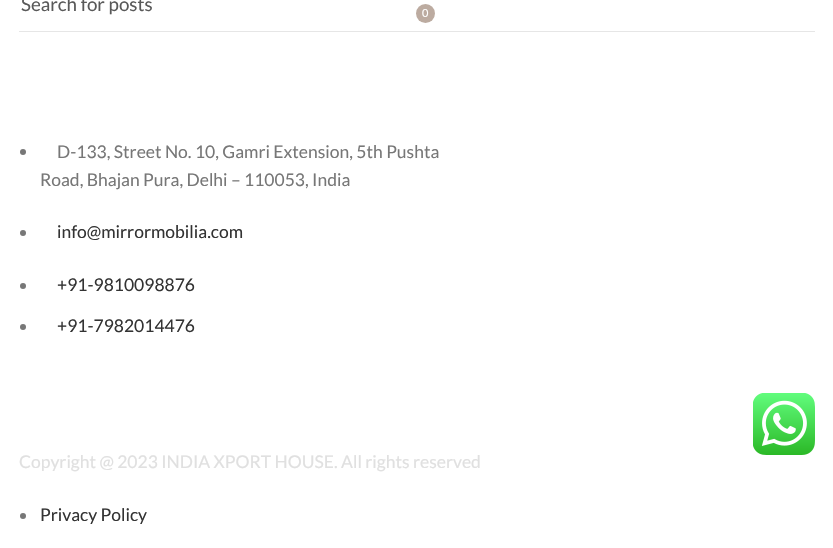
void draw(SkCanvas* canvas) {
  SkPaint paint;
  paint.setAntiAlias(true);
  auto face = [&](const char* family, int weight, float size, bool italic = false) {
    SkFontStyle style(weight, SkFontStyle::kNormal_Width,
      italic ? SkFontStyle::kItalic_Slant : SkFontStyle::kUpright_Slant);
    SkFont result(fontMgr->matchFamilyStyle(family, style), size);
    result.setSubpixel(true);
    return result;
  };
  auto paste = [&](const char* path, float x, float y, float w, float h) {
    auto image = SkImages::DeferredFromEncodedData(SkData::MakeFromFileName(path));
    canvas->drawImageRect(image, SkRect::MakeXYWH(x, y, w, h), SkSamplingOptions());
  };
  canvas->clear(0xffffffff);
  paint.setColor(0xffe6e6e6);
  canvas->drawRect(SkRect::MakeXYWH(19, 31, 796, 1), paint);
  paint.setColor(0xffbcaba0);
  canvas->drawCircle(425.5f, 13.5f, 9.5f, paint);
  paint.setColor(0xff777777);
  canvas->drawCircle(23, 152, 3, paint);
  canvas->drawCircle(23, 233, 3, paint);
  canvas->drawCircle(23, 286, 3, paint);
  canvas->drawCircle(23, 327, 3, paint);
  canvas->drawCircle(23, 516, 3, paint);
  paste("img/1.png", 753, 393, 62, 62);
  auto f0 = face("Lato", 400, 18.75f);
  paint.setColor(0xff595959);
  canvas->drawString("Search for posts", 21, 11, f0, paint);
  auto f1 = face("Lato", 400, 11);
  paint.setColor(0xffffffff);
  canvas->drawString("0", 422, 17, f1, paint);
  auto f2 = face("Lato", 400, 17.5f);
  paint.setColor(0xff777777);
  canvas->drawString("D-133, Street No. 10, Gamri Extension, 5th Pushta", 57, 158, f2, paint);
  canvas->drawString("Road, Bhajan Pura, Delhi – 110053, India", 40, 186, f2, paint);
  paint.setColor(0xff333333);
  {
    const struct { const char* s; float x, y; } items[] = {
      {"info@mirrormobilia.com", 57, 238},
      {"+91-9810098876", 57, 291},
      {"+91-7982014476", 57, 332},
    };
    for (auto [s, x, y] : items) {
      canvas->drawString(s, x, y, f2, paint);
    }
  }
  paint.setColor(0xffe0e0e0);
  canvas->drawString("Copyright @ 2023 INDIA XPORT HOUSE. All rights reserved", 19, 468, f2, paint);
  paint.setColor(0xff333333);
  canvas->drawString("Privacy Policy", 40, 521, f2, paint);
}
